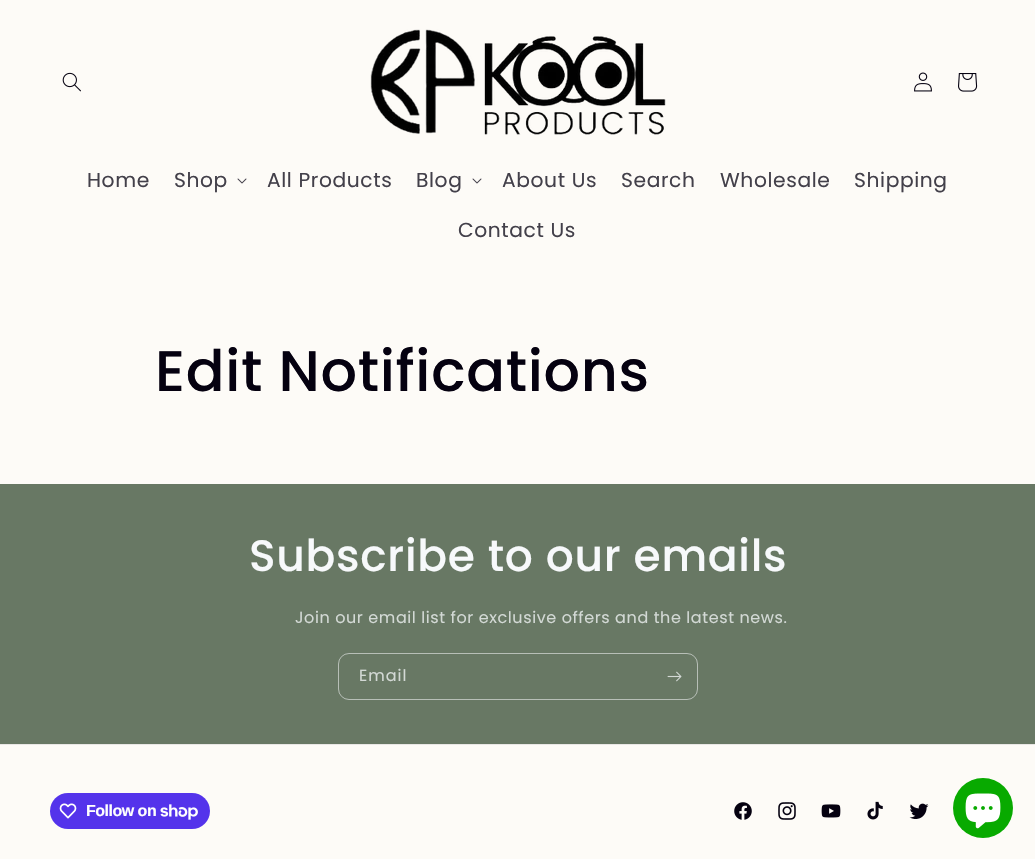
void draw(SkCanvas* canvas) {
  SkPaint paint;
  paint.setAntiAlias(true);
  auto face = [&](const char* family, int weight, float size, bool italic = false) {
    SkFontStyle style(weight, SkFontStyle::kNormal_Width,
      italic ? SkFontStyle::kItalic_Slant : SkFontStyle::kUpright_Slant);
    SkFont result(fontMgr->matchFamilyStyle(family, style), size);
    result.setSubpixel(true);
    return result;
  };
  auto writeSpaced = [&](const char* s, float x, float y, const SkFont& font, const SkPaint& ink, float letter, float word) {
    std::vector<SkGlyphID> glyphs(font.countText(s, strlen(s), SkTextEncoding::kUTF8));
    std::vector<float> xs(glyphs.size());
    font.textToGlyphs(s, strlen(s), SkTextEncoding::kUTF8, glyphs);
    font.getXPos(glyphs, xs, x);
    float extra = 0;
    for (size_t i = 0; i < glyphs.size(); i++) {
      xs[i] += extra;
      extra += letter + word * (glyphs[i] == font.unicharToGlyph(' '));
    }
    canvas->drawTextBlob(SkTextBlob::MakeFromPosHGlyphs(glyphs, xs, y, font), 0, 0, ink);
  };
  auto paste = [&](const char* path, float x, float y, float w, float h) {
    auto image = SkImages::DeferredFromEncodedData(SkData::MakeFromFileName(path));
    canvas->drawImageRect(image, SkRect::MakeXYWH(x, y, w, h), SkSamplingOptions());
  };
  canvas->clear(0xfffdfbf7);
  paste("img/1.png", 62, 72, 19, 20);
  paste("img/2.png", 370, 29, 296, 106);
  paste("img/3.png", 914, 72, 18, 20);
  paste("img/4.png", 958, 73, 20, 19);
  paste("img/5.png", 237, 178, 10, 6);
  paste("img/5.png", 472, 178, 10, 6);
  paint.setColor(0xff687864);
  canvas->drawRect(SkRect::MakeXYWH(0, 484, 1035, 260), paint);
  paint.setStroke(true);
  paint.setStrokeWidth(1);
  paint.setColor(0xffb7bfb7);
  canvas->drawRoundRect(SkRect::MakeXYWH(338.5f, 653.5f, 359, 46), 10.5f, 10.5f, paint);
  paste("img/6.png", 667, 671, 15, 11);
  paint.setStroke(false);
  paint.setColor(0xffe9e7e5);
  canvas->drawRect(SkRect::MakeXYWH(0, 744, 1035, 1), paint);
  paint.setColor(0xff5433eb);
  canvas->drawRoundRect(SkRect::MakeXYWH(50, 793, 160, 36), 18, 18, paint);
  paste("img/7.png", 59, 803, 18, 16);
  paste("img/8.png", 160, 804, 38, 16);
  paste("img/9.png", 734, 802, 18, 18);
  paste("img/10.png", 778, 802, 18, 18);
  paste("img/11.png", 821, 804, 20, 14);
  paste("img/12.png", 867, 801, 16, 19);
  paste("img/13.png", 909, 803, 20, 16);
  paint.setColor(0xff08aa00);
  canvas->drawCircle(983, 808, 30, paint);
  paste("img/14.png", 965, 793, 36, 36);
  auto f0 = face("Poppins", 400, 20.25f);
  paint.setColor(0xff43404a);
  {
    const struct { const char* s; float x, y; } items[] = {
      {"Home", 87, 187},
      {"Shop", 174, 187},
      {"All Products", 267, 187},
      {"Blog", 416, 187},
      {"About Us", 502, 187},
      {"Search", 621, 187},
      {"Wholesale", 720, 187},
      {"Shipping", 854, 187},
      {"Contact Us", 458, 237},
    };
    for (auto [s, x, y] : items) {
      writeSpaced(s, x, y, f0, paint, 0.6f, 0);
    }
  }
  auto f1 = face("Poppins", 500, 57.25f);
  paint.setColor(0xff050110);
  writeSpaced("Edit Notifications", 155, 391, f1, paint, 0.7f, 0);
  auto f2 = face("Poppins", 500, 44);
  paint.setColor(0xfff7f9fb);
  writeSpaced("Subscribe to our emails", 249, 571, f2, paint, 0.7f, 0);
  auto f3 = face("Poppins", 400, 16);
  paint.setColor(0xffd3d9d5);
  writeSpaced("Join our email list for exclusive offers and the latest news.", 295, 623, f3, paint, 0.6f, 0);
  writeSpaced("Email", 359, 681, f3, paint, 1, 0);
  auto f4 = face("Liberation Sans", 700, 16);
  paint.setColor(0xffffffff);
  writeSpaced("Follow on", 86, 816, f4, paint, -0.5f, 0);
}
